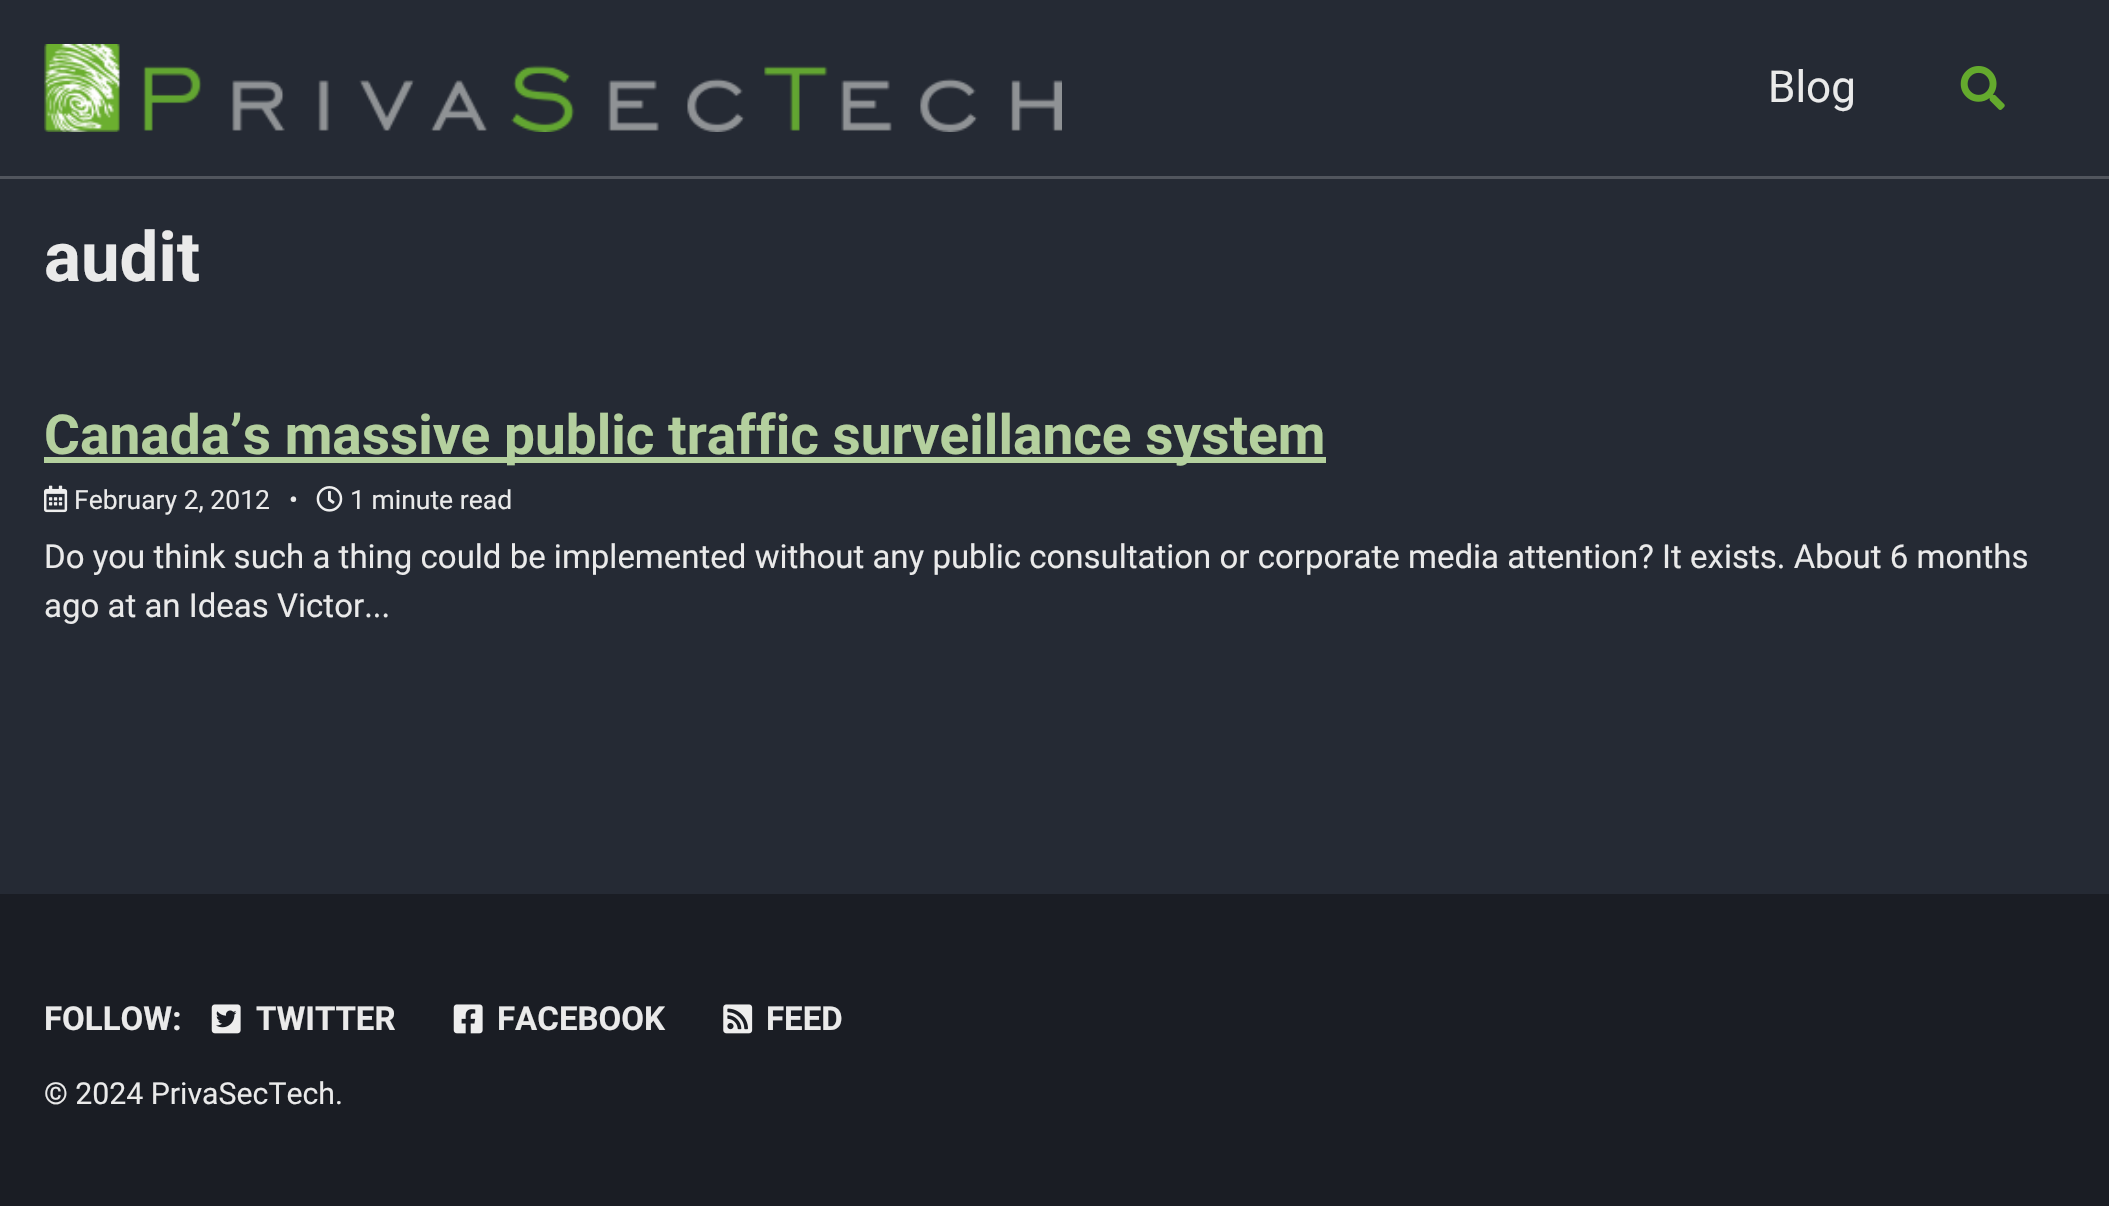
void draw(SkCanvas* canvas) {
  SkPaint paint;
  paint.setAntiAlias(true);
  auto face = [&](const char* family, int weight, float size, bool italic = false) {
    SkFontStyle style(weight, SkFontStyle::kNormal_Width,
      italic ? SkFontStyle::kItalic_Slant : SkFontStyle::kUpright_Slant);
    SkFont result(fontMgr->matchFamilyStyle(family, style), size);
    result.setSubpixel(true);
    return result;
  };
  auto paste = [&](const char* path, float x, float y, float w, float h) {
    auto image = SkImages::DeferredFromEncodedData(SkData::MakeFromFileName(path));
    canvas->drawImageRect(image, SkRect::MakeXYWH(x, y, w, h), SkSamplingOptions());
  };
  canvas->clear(0xff252a34);
  paint.setColor(0xff51555d);
  canvas->drawRect(SkRect::MakeXYWH(0, 176, 2109, 3), paint);
  paste("img/1.png", 44, 44, 1018, 88);
  paste("img/2.png", 1960, 66, 45, 44);
  paint.setColor(0xffb4d09e);
  canvas->drawRect(SkRect::MakeXYWH(44, 457, 1282, 6), paint);
  paste("img/3.png", 44, 485, 24, 28);
  paste("img/4.png", 316, 486, 27, 26);
  paint.setColor(0xff1a1d24);
  canvas->drawRect(SkRect::MakeXYWH(0, 894, 2109, 312), paint);
  paste("img/5.png", 211, 1004, 30, 30);
  paste("img/6.png", 453, 1004, 30, 30);
  paste("img/7.png", 723, 1004, 30, 30);
  auto f0 = face("Roboto", 400, 44);
  paint.setColor(0xffeaeaea);
  canvas->drawString("Blog", 1768, 102, f0, paint);
  auto f1 = face("Roboto", 700, 69);
  canvas->drawString("audit", 44, 281, f1, paint);
  auto f2 = face("Roboto", 700, 55);
  paint.setColor(0xffb4d09e);
  canvas->drawString("Canada’s massive public traffic surveillance system", 44, 454, f2, paint);
  auto f3 = face("Roboto", 400, 26.5f);
  paint.setColor(0xffeaeaea);
  {
    const struct { const char* s; float x, y; } items[] = {
      {"February 2, 2012", 74, 509},
      {"•", 289, 509},
      {"1 minute read", 350, 509},
    };
    for (auto [s, x, y] : items) {
      canvas->drawString(s, x, y, f3, paint);
    }
  }
  auto f4 = face("Roboto", 400, 33);
  canvas->drawString("Do you think such a thing could be implemented without any public consultation or corporate media attention? It exists. About 6 months", 44, 568, f4, paint);
  canvas->drawString("ago at an Ideas Victor...", 44, 617, f4, paint);
  auto f5 = face("Roboto", 700, 33);
  {
    const struct { const char* s; float x, y; } items[] = {
      {"FOLLOW:", 44, 1030},
      {"TWITTER", 256, 1030},
      {"FACEBOOK", 497, 1030},
      {"FEED", 766, 1030},
    };
    for (auto [s, x, y] : items) {
      canvas->drawString(s, x, y, f5, paint);
    }
  }
  auto f6 = face("Roboto", 400, 30.25f);
  canvas->drawString("© 2024 PrivaSecTech.", 44, 1104, f6, paint);
}
